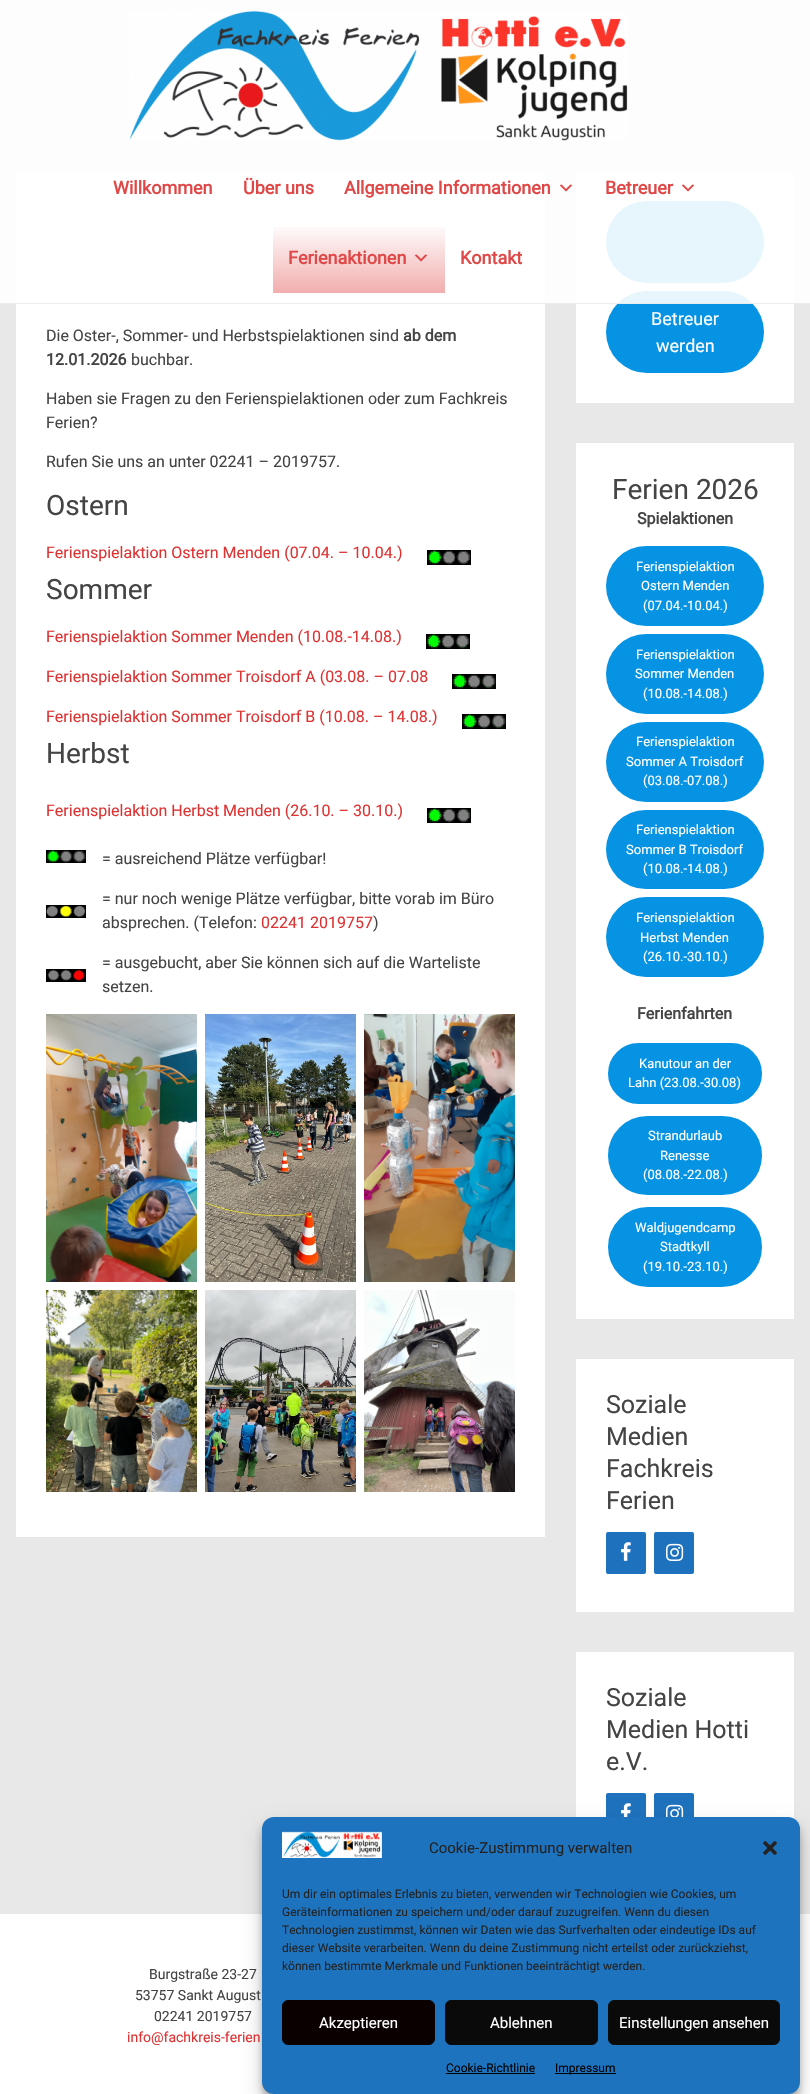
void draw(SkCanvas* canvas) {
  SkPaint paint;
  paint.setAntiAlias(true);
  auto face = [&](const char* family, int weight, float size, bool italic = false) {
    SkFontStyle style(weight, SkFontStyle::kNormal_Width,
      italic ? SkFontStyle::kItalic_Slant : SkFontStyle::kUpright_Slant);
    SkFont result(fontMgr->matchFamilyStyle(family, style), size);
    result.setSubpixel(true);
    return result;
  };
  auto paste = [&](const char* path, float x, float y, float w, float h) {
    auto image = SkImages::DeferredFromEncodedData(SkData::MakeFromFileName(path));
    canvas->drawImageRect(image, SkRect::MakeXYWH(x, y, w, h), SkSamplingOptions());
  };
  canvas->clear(0xffe8e8e8);
  paint.setColor(0xffffffff);
  canvas->drawRect(SkRect::MakeXYWH(16, 171, 529, 1366), paint);
  canvas->drawRect(SkRect::MakeXYWH(576, 171, 218, 232), paint);
  paint.setColor(0xff0693e3);
  canvas->drawRoundRect(SkRect::MakeXYWH(606, 201, 158, 82), 41, 41, paint);
  canvas->drawRoundRect(SkRect::MakeXYWH(606, 291, 158, 82), 41, 41, paint);
  paint.setColor(0xe6ffffff);
  canvas->drawRect(SkRect::MakeXYWH(0, 0, 810, 304), paint);
  paint.setColor(0xe6eaeaea);
  canvas->drawRect(SkRect::MakeXYWH(0, 303, 810, 1), paint);
  paste("img/1.png", 129, 11, 499, 130);
  paste("img/2.png", 559, 184, 14, 8);
  paste("img/3.png", 681, 184, 14, 8);
  {
    const SkColor colors[] = {0x00dd3333, 0x66dd3333};
    const float stops[] = {0, 1};
    const SkPoint ends[] = {{359, 223}, {359, 293}};
    paint.setShader(SkGradientShader::MakeLinear(ends, colors, stops, 2, SkTileMode::kClamp));
    paint.setAlpha(255);
  }
  canvas->drawRect(SkRect::MakeXYWH(273, 227, 172, 66), paint);
  paste("img/4.png", 414, 254, 14, 8);
  paste("img/5.png", 427, 550, 44, 15);
  paste("img/5.png", 426, 634, 44, 15);
  paste("img/5.png", 452, 674, 44, 15);
  paste("img/5.png", 462, 714, 44, 15);
  paste("img/5.png", 427, 808, 44, 15);
  paste("img/6.png", 46, 850, 40, 13);
  paste("img/7.png", 46, 905, 40, 13);
  paste("img/8.png", 46, 969, 40, 13);
  paste("img/9.png", 46, 1014, 151, 268);
  paste("img/10.png", 205, 1014, 151, 268);
  paste("img/11.png", 364, 1014, 151, 268);
  paste("img/12.png", 46, 1290, 151, 202);
  paste("img/13.png", 205, 1290, 151, 202);
  paste("img/14.png", 364, 1290, 151, 202);
  paint.setShader(nullptr);
  paint.setColor(0xffffffff);
  canvas->drawRect(SkRect::MakeXYWH(576, 443, 218, 876), paint);
  paint.setColor(0xff0693e3);
  canvas->drawRoundRect(SkRect::MakeXYWH(606, 546, 158, 80), 40, 40, paint);
  canvas->drawRoundRect(SkRect::MakeXYWH(606, 634, 158, 80), 40, 40, paint);
  canvas->drawRoundRect(SkRect::MakeXYWH(606, 722, 158, 80), 40, 40, paint);
  canvas->drawRoundRect(SkRect::MakeXYWH(606, 810, 158, 79), 39.5f, 39.5f, paint);
  canvas->drawRoundRect(SkRect::MakeXYWH(606, 897, 158, 80), 40, 40, paint);
  canvas->drawRoundRect(SkRect::MakeXYWH(607, 1042, 156, 63), 31.5f, 31.5f, paint);
  paint.setStroke(true);
  paint.setStrokeWidth(2);
  paint.setColor(0xffffffff);
  canvas->drawRoundRect(SkRect::MakeXYWH(607, 1042, 156, 63), 31.5f, 31.5f, paint);
  paint.setStroke(false);
  paint.setColor(0xff0693e3);
  canvas->drawRoundRect(SkRect::MakeXYWH(607, 1115, 156, 81), 40.5f, 40.5f, paint);
  paint.setStroke(true);
  paint.setColor(0xffffffff);
  canvas->drawRoundRect(SkRect::MakeXYWH(607, 1115, 156, 81), 40.5f, 40.5f, paint);
  paint.setStroke(false);
  paint.setColor(0xff0693e3);
  canvas->drawRoundRect(SkRect::MakeXYWH(607, 1206, 156, 82), 41, 41, paint);
  paint.setStroke(true);
  paint.setColor(0xffffffff);
  canvas->drawRoundRect(SkRect::MakeXYWH(607, 1206, 156, 82), 41, 41, paint);
  paint.setStroke(false);
  canvas->drawRect(SkRect::MakeXYWH(576, 1359, 218, 253), paint);
  paint.setColor(0xff1e72bd);
  canvas->drawRoundRect(SkRect::MakeXYWH(606, 1532, 40, 42), 2, 2, paint);
  paste("img/15.png", 621, 1542, 10, 19);
  canvas->drawRoundRect(SkRect::MakeXYWH(654, 1532, 40, 42), 2, 2, paint);
  paste("img/16.png", 666, 1543, 18, 18);
  paint.setColor(0xffffffff);
  canvas->drawRect(SkRect::MakeXYWH(576, 1652, 218, 167), paint);
  paint.setColor(0xff1e72bd);
  canvas->drawRoundRect(SkRect::MakeXYWH(606, 1793, 40, 42), 2, 2, paint);
  paste("img/17.png", 621, 1803, 10, 14);
  canvas->drawRoundRect(SkRect::MakeXYWH(654, 1793, 40, 42), 2, 2, paint);
  paste("img/18.png", 666, 1804, 18, 13);
  paint.setColor(0xffffffff);
  canvas->drawRect(SkRect::MakeXYWH(0, 1914, 810, 180), paint);
  paint.setColor(0x3b000000);
  paint.setMaskFilter(SkMaskFilter::MakeBlur(kNormal_SkBlurStyle, 3));
  canvas->drawRoundRect(SkRect::MakeXYWH(262, 1823, 538, 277), 12, 12, paint);
  paint.setMaskFilter(nullptr);
  paint.setColor(0x30000000);
  paint.setMaskFilter(SkMaskFilter::MakeBlur(kNormal_SkBlurStyle, 10));
  canvas->drawRoundRect(SkRect::MakeXYWH(262, 1827, 538, 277), 12, 12, paint);
  paint.setMaskFilter(nullptr);
  paint.setColor(0xff1e73be);
  canvas->drawRoundRect(SkRect::MakeXYWH(262, 1817, 538, 277), 12, 12, paint);
  paste("img/19.png", 282, 1831, 100, 27);
  paste("img/20.png", 763, 1841, 14, 14);
  paint.setColor(0xff0a0000);
  canvas->drawRoundRect(SkRect::MakeXYWH(282.5f, 2000.5f, 152, 44), 5.5f, 5.5f, paint);
  paint.setStroke(true);
  paint.setStrokeWidth(1);
  paint.setColor(0xff0c0202);
  canvas->drawRoundRect(SkRect::MakeXYWH(282.5f, 2000.5f, 152, 44), 5.5f, 5.5f, paint);
  paint.setStroke(false);
  paint.setColor(0xff0a0a0a);
  canvas->drawRoundRect(SkRect::MakeXYWH(445.5f, 2000.5f, 152, 44), 5.5f, 5.5f, paint);
  paint.setStroke(true);
  canvas->drawRoundRect(SkRect::MakeXYWH(445.5f, 2000.5f, 152, 44), 5.5f, 5.5f, paint);
  paint.setStroke(false);
  canvas->drawRoundRect(SkRect::MakeXYWH(608.5f, 2000.5f, 171, 44), 5.5f, 5.5f, paint);
  paint.setStroke(true);
  paint.setColor(0xff0c0c0c);
  canvas->drawRoundRect(SkRect::MakeXYWH(608.5f, 2000.5f, 171, 44), 5.5f, 5.5f, paint);
  paint.setStroke(false);
  paint.setColor(0xff000000);
  canvas->drawRect(SkRect::MakeXYWH(446, 2073, 89, 1), paint);
  canvas->drawRect(SkRect::MakeXYWH(555, 2073, 61, 1), paint);
  auto f0 = face("Roboto", 700, 18);
  paint.setColor(0xffe04747);
  {
    const struct { const char* s; float x, y; } items[] = {
      {"Willkommen", 113, 194},
      {"Über uns", 243, 194},
      {"Allgemeine Informationen", 344, 194},
      {"Betreuer", 605, 194},
      {"Ferienaktionen", 288, 264},
      {"Kontakt", 460, 264},
    };
    for (auto [s, x, y] : items) {
      canvas->drawString(s, x, y, f0, paint);
    }
  }
  auto f1 = face("Roboto", 400, 16);
  paint.setColor(0xff444444);
  canvas->drawString("Die Oster-, Sommer- und Herbstspielaktionen sind", 46, 341, f1, paint);
  auto f2 = face("Roboto", 700, 16);
  canvas->drawString("ab dem", 403, 341, f2, paint);
  canvas->drawString("12.01.2026", 46, 365, f2, paint);
  {
    const struct { const char* s; float x, y; } items[] = {
      {"buchbar.", 131, 365},
      {"Haben sie Fragen zu den Ferienspielaktionen oder zum Fachkreis", 46, 404},
      {"Ferien?", 46, 428},
      {"Rufen Sie uns an unter 02241 – 2019757.", 46, 467},
    };
    for (auto [s, x, y] : items) {
      canvas->drawString(s, x, y, f1, paint);
    }
  }
  auto f3 = face("Roboto", 400, 28);
  canvas->drawString("Ostern", 46, 515, f3, paint);
  paint.setColor(0xffdd3333);
  canvas->drawString("Ferienspielaktion Ostern Menden (07.04. – 10.04.)", 46, 558, f1, paint);
  paint.setColor(0xff444444);
  canvas->drawString("Sommer", 46, 599, f3, paint);
  paint.setColor(0xffdd3333);
  {
    const struct { const char* s; float x, y; } items[] = {
      {"Ferienspielaktion Sommer Menden (10.08.-14.08.)", 46, 642},
      {"Ferienspielaktion Sommer Troisdorf A (03.08. – 07.08", 46, 682},
      {"Ferienspielaktion Sommer Troisdorf B (10.08. – 14.08.)", 46, 722},
    };
    for (auto [s, x, y] : items) {
      canvas->drawString(s, x, y, f1, paint);
    }
  }
  paint.setColor(0xff444444);
  canvas->drawString("Herbst", 46, 763, f3, paint);
  paint.setColor(0xffdd3333);
  canvas->drawString("Ferienspielaktion Herbst Menden (26.10. – 30.10.)", 46, 816, f1, paint);
  paint.setColor(0xff444444);
  {
    const struct { const char* s; float x, y; } items[] = {
      {"= ausreichend Plätze verfügbar!", 102, 864},
      {"= nur noch wenige Plätze verfügbar, bitte vorab im Büro", 102, 904},
      {"absprechen. (Telefon:", 102, 928},
    };
    for (auto [s, x, y] : items) {
      canvas->drawString(s, x, y, f1, paint);
    }
  }
  paint.setColor(0xffdd3333);
  canvas->drawString("02241 2019757", 261, 928, f1, paint);
  paint.setColor(0xff444444);
  {
    const struct { const char* s; float x, y; } items[] = {
      {")", 373, 928},
      {"= ausgebucht, aber Sie können sich auf die Warteliste", 102, 968},
      {"setzen.", 102, 992},
    };
    for (auto [s, x, y] : items) {
      canvas->drawString(s, x, y, f1, paint);
    }
  }
  auto f4 = face("Roboto", 400, 18);
  paint.setColor(0xffffffff);
  canvas->drawString("Betreuer", 651, 325, f4, paint);
  canvas->drawString("werden", 656, 352, f4, paint);
  paint.setColor(0xff444444);
  canvas->drawString("Ferien 2026", 612, 499, f3, paint);
  canvas->drawString("Spielaktionen", 637, 524, f2, paint);
  auto f5 = face("Roboto", 400, 13);
  paint.setColor(0xffffffff);
  {
    const struct { const char* s; float x, y; } items[] = {
      {"Ferienspielaktion", 636, 571},
      {"Ostern Menden", 641, 590},
      {"(07.04.-10.04.)", 643, 610},
      {"Ferienspielaktion", 636, 659},
      {"Sommer Menden", 635, 678},
      {"(10.08.-14.08.)", 643, 698},
      {"Ferienspielaktion", 636, 746},
      {"Sommer A Troisdorf", 626, 766},
      {"(03.08.-07.08.)", 643, 785},
      {"Ferienspielaktion", 636, 834},
      {"Sommer B Troisdorf", 626, 854},
      {"(10.08.-14.08.)", 643, 873},
      {"Ferienspielaktion", 636, 922},
      {"Herbst Menden", 640, 942},
      {"(26.10.-30.10.)", 643, 961},
    };
    for (auto [s, x, y] : items) {
      canvas->drawString(s, x, y, f5, paint);
    }
  }
  paint.setColor(0xff444444);
  canvas->drawString("Ferienfahrten", 637, 1019, f2, paint);
  paint.setColor(0xffffffff);
  {
    const struct { const char* s; float x, y; } items[] = {
      {"Kanutour an der", 639, 1068},
      {"Lahn (23.08.-30.08)", 628, 1087},
      {"Strandurlaub", 648, 1140},
      {"Renesse", 660, 1160},
      {"(08.08.-22.08.)", 643, 1179},
      {"Waldjugendcamp", 635, 1232},
      {"Stadtkyll", 660, 1251},
      {"(19.10.-23.10.)", 643, 1271},
    };
    for (auto [s, x, y] : items) {
      canvas->drawString(s, x, y, f5, paint);
    }
  }
  auto f6 = face("Roboto", 400, 25);
  paint.setColor(0xff444444);
  {
    const struct { const char* s; float x, y; } items[] = {
      {"Soziale", 606, 1413},
      {"Medien", 606, 1445},
      {"Fachkreis", 606, 1477},
      {"Ferien", 606, 1509},
      {"Soziale", 606, 1706},
      {"Medien Hotti", 606, 1738},
      {"e.V.", 606, 1770},
    };
    for (auto [s, x, y] : items) {
      canvas->drawString(s, x, y, f6, paint);
    }
  }
  auto f7 = face("Roboto", 400, 14);
  {
    const struct { const char* s; float x, y; } items[] = {
      {"Burgstraße 23-27", 149, 1979},
      {"53757 Sankt August", 135, 2000},
      {"02241 2019757", 154, 2021},
    };
    for (auto [s, x, y] : items) {
      canvas->drawString(s, x, y, f7, paint);
    }
  }
  paint.setColor(0xffdd3333);
  canvas->drawString("info@fachkreis-ferien", 127, 2042, f7, paint);
  auto f8 = face("Roboto", 400, 15);
  paint.setColor(0xff222222);
  canvas->drawString("Cookie-Zustimmung verwalten", 429, 1853, f8, paint);
  auto f9 = face("Roboto", 400, 12);
  {
    const struct { const char* s; float x, y; } items[] = {
      {"Um dir ein optimales Erlebnis zu bieten, verwenden wir Technologien wie Cookies, um", 282, 1898},
      {"Geräteinformationen zu speichern und/oder darauf zuzugreifen. Wenn du diesen", 282, 1916},
      {"Technologien zustimmst, können wir Daten wie das Surfverhalten oder eindeutige IDs auf", 282, 1934},
      {"dieser Website verarbeiten. Wenn du deine Zustimmung nicht erteilst oder zurückziehst,", 282, 1952},
      {"können bestimmte Merkmale und Funktionen beeinträchtigt werden.", 282, 1970},
    };
    for (auto [s, x, y] : items) {
      canvas->drawString(s, x, y, f9, paint);
    }
  }
  paint.setColor(0xffffffff);
  {
    const struct { const char* s; float x, y; } items[] = {
      {"Akzeptieren", 319, 2028},
      {"Ablehnen", 490, 2028},
      {"Einstellungen ansehen", 619, 2028},
    };
    for (auto [s, x, y] : items) {
      canvas->drawString(s, x, y, f8, paint);
    }
  }
  paint.setColor(0xff000000);
  canvas->drawString("Cookie-Richtlinie", 446, 2072, f9, paint);
  canvas->drawString("Impressum", 555, 2072, f9, paint);
}
